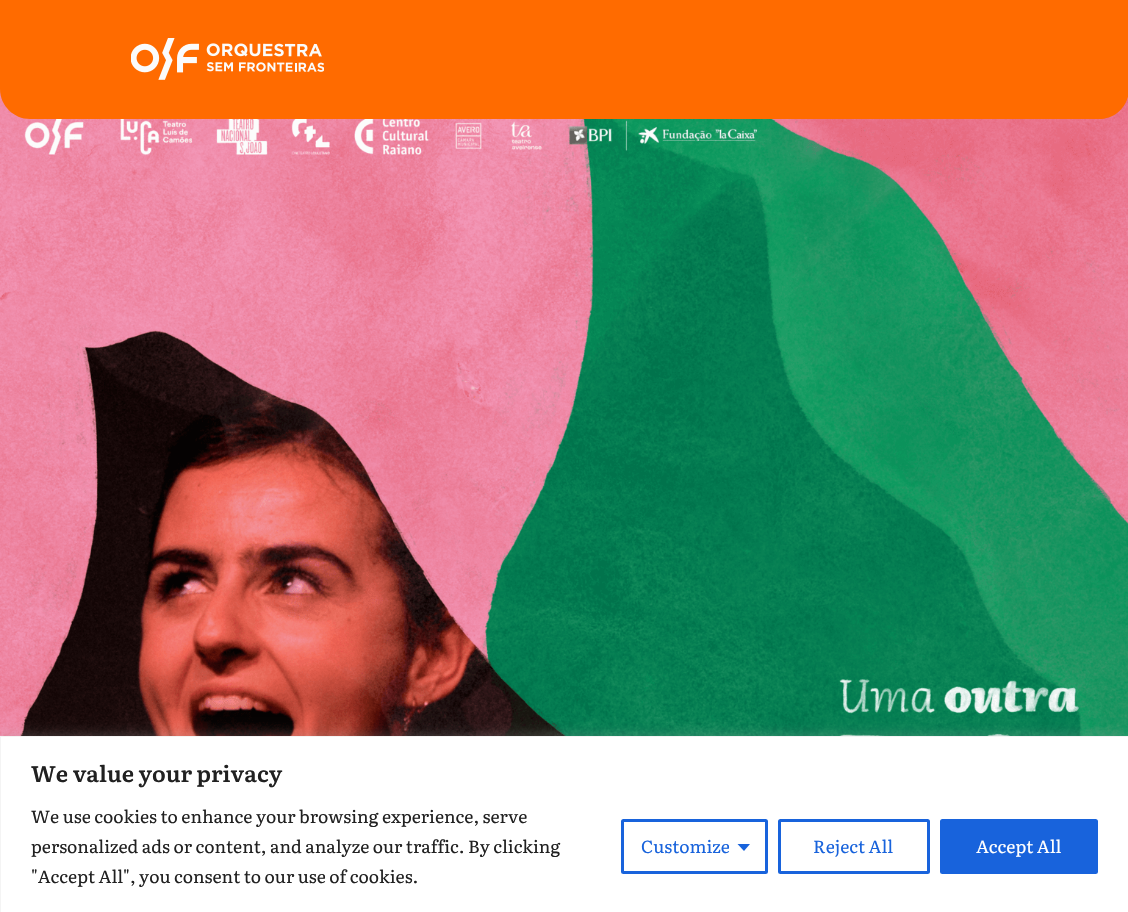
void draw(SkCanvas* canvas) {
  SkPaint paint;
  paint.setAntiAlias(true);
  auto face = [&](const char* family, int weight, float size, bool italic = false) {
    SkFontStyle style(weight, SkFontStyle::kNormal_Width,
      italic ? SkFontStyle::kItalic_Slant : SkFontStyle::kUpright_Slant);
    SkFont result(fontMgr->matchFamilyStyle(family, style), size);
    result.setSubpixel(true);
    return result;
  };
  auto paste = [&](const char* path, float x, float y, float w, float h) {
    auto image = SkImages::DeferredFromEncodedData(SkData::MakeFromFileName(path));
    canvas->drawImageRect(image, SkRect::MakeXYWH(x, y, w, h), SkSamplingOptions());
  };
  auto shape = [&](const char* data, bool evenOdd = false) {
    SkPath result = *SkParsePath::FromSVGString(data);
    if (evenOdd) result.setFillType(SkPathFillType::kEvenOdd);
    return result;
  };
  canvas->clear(0xffffffff);
  paste("img/2.png", 0, 89, 1128, 647);
  paint.setColor(0xffff6b00);
  canvas->drawPath(shape("M0 0H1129V89C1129 105.5 1115.5 119 1099 119H30C13.5 119 0 105.5 0 89Z"), paint);
  paste("img/1.png", 131, 38, 193, 42);
  paint.setColor(0x4dacabab);
  paint.setMaskFilter(SkMaskFilter::MakeBlur(kNormal_SkBlurStyle, 6));
  canvas->drawRect(SkRect::MakeXYWH(0, 735, 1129, 176), paint);
  paint.setMaskFilter(nullptr);
  paint.setColor(0xffffffff);
  canvas->drawRect(SkRect::MakeXYWH(0.5f, 736.5f, 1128, 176), paint);
  paint.setStroke(true);
  paint.setStrokeWidth(1);
  paint.setColor(0xfff4f4f4);
  canvas->drawRect(SkRect::MakeXYWH(0.5f, 736.5f, 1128, 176), paint);
  paint.setStrokeWidth(3);
  paint.setColor(0xff1863dc);
  canvas->drawRoundRect(SkRect::MakeXYWH(622.5f, 820.5f, 144, 52), 1, 1, paint);
  paint.setStroke(false);
  canvas->drawPath(shape("M737.5 844H750L744 851Z"), paint);
  paint.setStroke(true);
  canvas->drawRoundRect(SkRect::MakeXYWH(779.5f, 820.5f, 149, 52), 1, 1, paint);
  paint.setStroke(false);
  canvas->drawRoundRect(SkRect::MakeXYWH(941.5f, 820.5f, 155, 52), 1, 1, paint);
  paint.setStroke(true);
  canvas->drawRoundRect(SkRect::MakeXYWH(941.5f, 820.5f, 155, 52), 1, 1, paint);
  auto f0 = face("Literata", 600, 22.5f);
  paint.setStroke(false);
  paint.setColor(0xff212121);
  canvas->drawString("We value your privacy", 31, 782, f0, paint);
  auto f1 = face("Literata", 400, 17.5f);
  {
    const struct { const char* s; float x, y; } items[] = {
      {"We use cookies to enhance your browsing experience, serve", 31, 823},
      {"personalized ads or content, and analyze our traffic. By clicking", 31, 853},
      {"\"Accept All\", you consent to our use of cookies.", 31, 883},
    };
    for (auto [s, x, y] : items) {
      canvas->drawString(s, x, y, f1, paint);
    }
  }
  paint.setColor(0xff1863dc);
  canvas->drawString("Customize", 641, 853, f1, paint);
  canvas->drawString("Reject All", 813, 853, f1, paint);
  paint.setColor(0xffffffff);
  canvas->drawString("Accept All", 976, 853, f1, paint);
}
